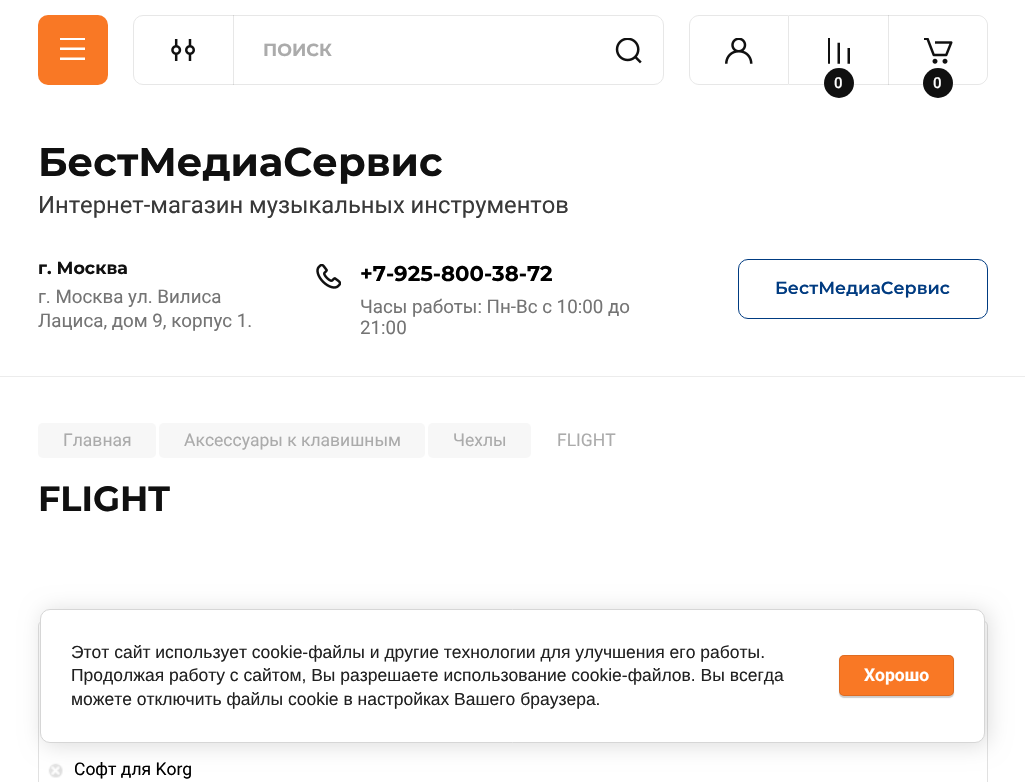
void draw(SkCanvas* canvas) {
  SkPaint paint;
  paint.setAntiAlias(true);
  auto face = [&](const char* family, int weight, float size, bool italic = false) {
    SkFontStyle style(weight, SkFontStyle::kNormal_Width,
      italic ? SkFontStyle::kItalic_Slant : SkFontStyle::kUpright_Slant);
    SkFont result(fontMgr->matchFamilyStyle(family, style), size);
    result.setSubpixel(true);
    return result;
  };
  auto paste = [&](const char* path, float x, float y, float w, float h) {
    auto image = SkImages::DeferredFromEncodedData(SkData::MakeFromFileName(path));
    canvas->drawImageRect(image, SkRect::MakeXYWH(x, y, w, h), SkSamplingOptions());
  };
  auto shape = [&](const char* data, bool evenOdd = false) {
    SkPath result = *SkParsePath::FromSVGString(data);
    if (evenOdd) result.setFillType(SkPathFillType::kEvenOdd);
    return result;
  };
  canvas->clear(0xffffffff);
  paint.setColor(0xfff97825);
  canvas->drawRoundRect(SkRect::MakeXYWH(38, 15, 70, 70), 10, 10, paint);
  paste("img/1.png", 60, 38, 25, 22);
  paint.setStroke(true);
  paint.setStrokeWidth(1);
  paint.setColor(0xffe7e7e7);
  canvas->drawRoundRect(SkRect::MakeXYWH(133.5f, 15.5f, 530, 69), 9.5f, 9.5f, paint);
  paste("img/2.png", 171, 39, 24, 22);
  paint.setStroke(false);
  paint.setColor(0x1a101010);
  canvas->drawRect(SkRect::MakeXYWH(233, 15, 1, 70), paint);
  paste("img/3.png", 615, 38, 27, 26);
  paint.setStroke(true);
  paint.setColor(0xffe7e7e7);
  canvas->drawPath(shape("M699 15.5H788.5V84.5H699C694 84.5 689.5 80 689.5 75V25C689.5 20 694 15.5 699 15.5Z"), paint);
  paste("img/4.png", 725, 38, 28, 26);
  paint.setStroke(false);
  canvas->drawRect(SkRect::MakeXYWH(789, 15, 100, 1), paint);
  canvas->drawRect(SkRect::MakeXYWH(789, 84, 100, 1), paint);
  paste("img/5.png", 828, 38, 22, 26);
  paint.setColor(0xff101010);
  canvas->drawCircle(839, 83, 15, paint);
  paint.setStroke(true);
  paint.setColor(0x1a101010);
  canvas->drawPath(shape("M888.5 15.5H978C983 15.5 987.5 20 987.5 25V75C987.5 80 983 84.5 978 84.5H888.5Z"), paint);
  paste("img/6.png", 924, 38, 29, 26);
  paint.setStroke(false);
  paint.setColor(0xff101010);
  canvas->drawCircle(938, 83, 15, paint);
  paint.setColor(0xffececec);
  canvas->drawRect(SkRect::MakeXYWH(0, 376, 1025, 1), paint);
  paste("img/7.png", 316, 264, 25, 25);
  paint.setStroke(true);
  paint.setColor(0xff003b81);
  canvas->drawRoundRect(SkRect::MakeXYWH(738.5f, 259.5f, 249, 59), 9.5f, 9.5f, paint);
  paint.setStroke(false);
  paint.setColor(0xfff7f7f7);
  canvas->drawRoundRect(SkRect::MakeXYWH(38, 423, 118, 35), 5, 5, paint);
  canvas->drawRoundRect(SkRect::MakeXYWH(159, 423, 266, 35), 5, 5, paint);
  canvas->drawRoundRect(SkRect::MakeXYWH(428, 423, 103, 35), 5, 5, paint);
  paint.setStroke(true);
  paint.setColor(0xffe1e1e1);
  canvas->drawRoundRect(SkRect::MakeXYWH(38.5f, 620.5f, 949, 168), 5.5f, 5.5f, paint);
  paste("img/8.png", 48, 763, 15, 15);
  paint.setStroke(false);
  paint.setColor(0x24000000);
  paint.setMaskFilter(SkMaskFilter::MakeBlur(kNormal_SkBlurStyle, 11));
  canvas->drawRoundRect(SkRect::MakeXYWH(43, 611, 945, 134), 10, 10, paint);
  paint.setMaskFilter(nullptr);
  paint.setColor(0xffffffff);
  canvas->drawRoundRect(SkRect::MakeXYWH(40.5f, 609.5f, 944, 133), 9.5f, 9.5f, paint);
  paint.setStroke(true);
  paint.setColor(0xffd6d6d6);
  canvas->drawRoundRect(SkRect::MakeXYWH(40.5f, 609.5f, 944, 133), 9.5f, 9.5f, paint);
  paint.setStroke(false);
  paint.setColor(0x33000000);
  paint.setMaskFilter(SkMaskFilter::MakeBlur(kNormal_SkBlurStyle, 0.5f));
  canvas->drawRoundRect(SkRect::MakeXYWH(839, 656, 115, 42), 5, 5, paint);
  paint.setMaskFilter(nullptr);
  paint.setColor(0xfff97825);
  canvas->drawRoundRect(SkRect::MakeXYWH(839, 655, 115, 41), 5, 5, paint);
  paint.setStroke(true);
  paint.setColor(0x1a000000);
  canvas->drawRoundRect(SkRect::MakeXYWH(839.5f, 655.5f, 114, 40), 4.5f, 4.5f, paint);
  auto f0 = face("Montserrat", 700, 17.5f);
  paint.setStroke(false);
  paint.setColor(0xffababab);
  canvas->drawString("ПОИСК", 263, 56, f0, paint);
  auto f1 = face("Roboto", 500, 15);
  paint.setColor(0xffffffff);
  canvas->drawString("0", 834, 88, f1, paint);
  canvas->drawString("0", 933, 88, f1, paint);
  auto f2 = face("Montserrat", 700, 40);
  paint.setColor(0xff101010);
  canvas->drawString("БестМедиаСервис", 38, 176, f2, paint);
  auto f3 = face("Roboto", 400, 23.75f);
  paint.setColor(0xff393939);
  canvas->drawString("Интернет-магазин музыкальных инструментов", 38, 213, f3, paint);
  paint.setColor(0xff101010);
  canvas->drawString("г. Москва", 38, 274, f0, paint);
  auto f4 = face("Roboto", 400, 18.75f);
  paint.setColor(0xff747474);
  canvas->drawString("г. Москва ул. Вилиса", 38, 303, f4, paint);
  canvas->drawString("Лациса, дом 9, корпус 1.", 38, 327, f4, paint);
  auto f5 = face("Montserrat", 700, 21.25f);
  paint.setColor(0xff000000);
  canvas->drawString("+7-925-800-38-72", 360, 281, f5, paint);
  paint.setColor(0xff747474);
  canvas->drawString("Часы работы: Пн-Вс с 10:00 до", 360, 313, f4, paint);
  canvas->drawString("21:00", 360, 334, f4, paint);
  auto f6 = face("Montserrat", 600, 17.5f);
  paint.setColor(0xff003b81);
  canvas->drawString("БестМедиаСервис", 775, 294, f6, paint);
  auto f7 = face("Roboto", 400, 17.5f);
  paint.setColor(0xffababab);
  {
    const struct { const char* s; float x, y; } items[] = {
      {"Главная", 63, 446},
      {"Аксессуары к клавишным", 184, 446},
      {"Чехлы", 453, 446},
      {"FLIGHT", 557, 446},
    };
    for (auto [s, x, y] : items) {
      canvas->drawString(s, x, y, f7, paint);
    }
  }
  auto f8 = face("Montserrat", 700, 35);
  paint.setColor(0xff101010);
  canvas->drawString("FLIGHT", 38, 511, f8, paint);
  paint.setColor(0xff000000);
  canvas->drawString("Софт для Korg", 74, 775, f7, paint);
  auto f9 = face("Liberation Sans", 400, 17.5f);
  paint.setColor(0xff212121);
  {
    const struct { const char* s; float x, y; } items[] = {
      {"Этот сайт использует cookie-файлы и другие технологии для улучшения его работы.", 71, 658},
      {"Продолжая работу с сайтом, Вы разрешаете использование cookie-файлов. Вы всегда", 71, 681},
      {"можете отключить файлы cookie в настройках Вашего браузера.", 71, 705},
    };
    for (auto [s, x, y] : items) {
      canvas->drawString(s, x, y, f9, paint);
    }
  }
  auto f10 = face("Roboto", 700, 17.5f);
  paint.setColor(0xffffffff);
  canvas->drawString("Хорошо", 864, 681, f10, paint);
}
